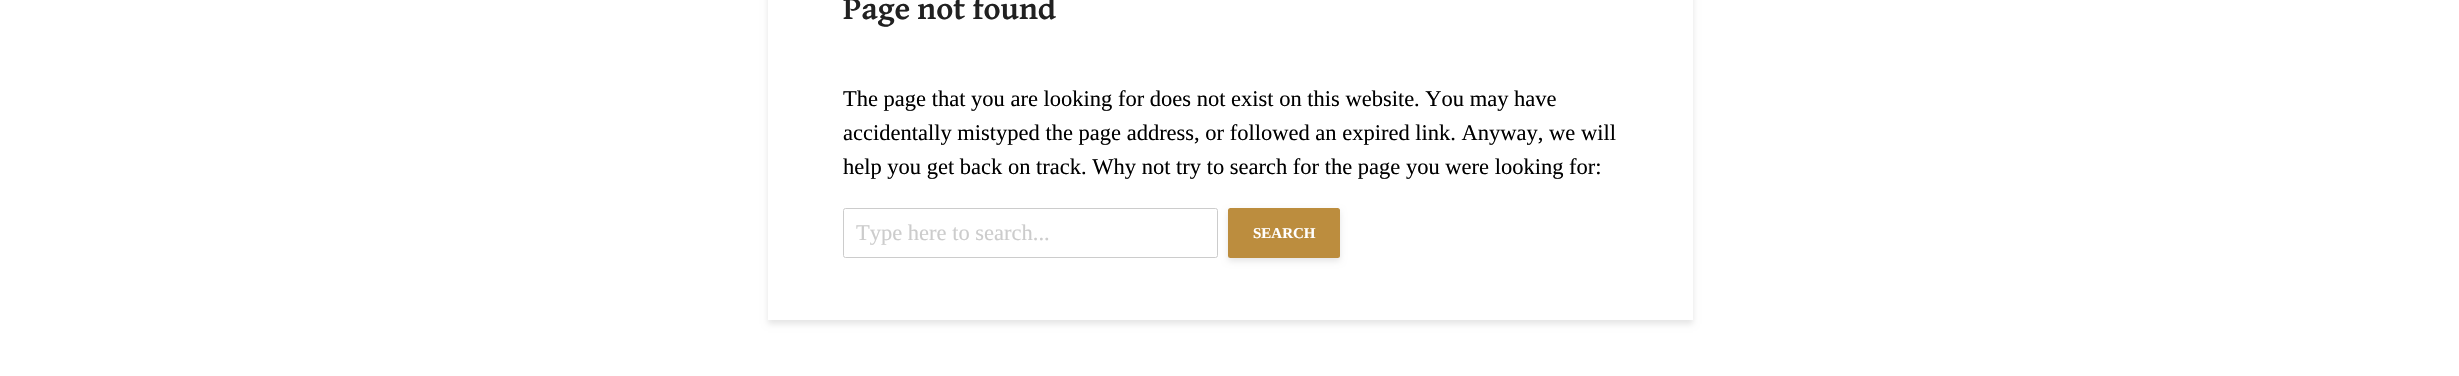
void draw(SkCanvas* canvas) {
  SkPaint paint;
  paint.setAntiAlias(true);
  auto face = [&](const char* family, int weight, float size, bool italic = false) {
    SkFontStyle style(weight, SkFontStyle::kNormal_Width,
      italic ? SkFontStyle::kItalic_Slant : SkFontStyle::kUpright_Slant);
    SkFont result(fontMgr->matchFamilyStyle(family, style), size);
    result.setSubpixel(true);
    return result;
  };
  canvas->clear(0xffffffff);
  paint.setColor(0x1a000101);
  paint.setMaskFilter(SkMaskFilter::MakeBlur(kNormal_SkBlurStyle, 3));
  canvas->drawRect(SkRect::MakeXYWH(768, -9, 925, 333), paint);
  paint.setMaskFilter(nullptr);
  paint.setColor(0xffffffff);
  canvas->drawRect(SkRect::MakeXYWH(768, 0, 925, 320), paint);
  paint.setStroke(true);
  paint.setStrokeWidth(1);
  paint.setColor(0xffcccccc);
  canvas->drawRoundRect(SkRect::MakeXYWH(843.5f, 208.5f, 374, 49), 2, 2, paint);
  paint.setStroke(false);
  paint.setColor(0x1a000000);
  paint.setMaskFilter(SkMaskFilter::MakeBlur(kNormal_SkBlurStyle, 3));
  canvas->drawRoundRect(SkRect::MakeXYWH(1228, 211, 112, 50), 2.5f, 2.5f, paint);
  paint.setMaskFilter(nullptr);
  paint.setColor(0xffbc8d3e);
  canvas->drawRoundRect(SkRect::MakeXYWH(1228, 208, 112, 50), 2.5f, 2.5f, paint);
  auto f0 = face("Gentium Plus", 700, 32.5f);
  paint.setColor(0xff212121);
  canvas->drawString("Page not found", 843, 19, f0, paint);
  auto f1 = face("Liberation Serif", 400, 22.5f);
  paint.setColor(0xff000000);
  {
    const struct { const char* s; float x, y; } items[] = {
      {"The page that you are looking for does not exist on this website. You may have", 843, 106},
      {"accidentally mistyped the page address, or followed an expired link. Anyway, we will", 843, 140},
      {"help you get back on track. Why not try to search for the page you were looking for:", 843, 174},
    };
    for (auto [s, x, y] : items) {
      canvas->drawString(s, x, y, f1, paint);
    }
  }
  paint.setColor(0xffcccccc);
  canvas->drawString("Type here to search...", 856, 240, f1, paint);
  auto f2 = face("Liberation Serif", 700, 15);
  paint.setColor(0xffffffff);
  canvas->drawString("SEARCH", 1253, 238, f2, paint);
}
